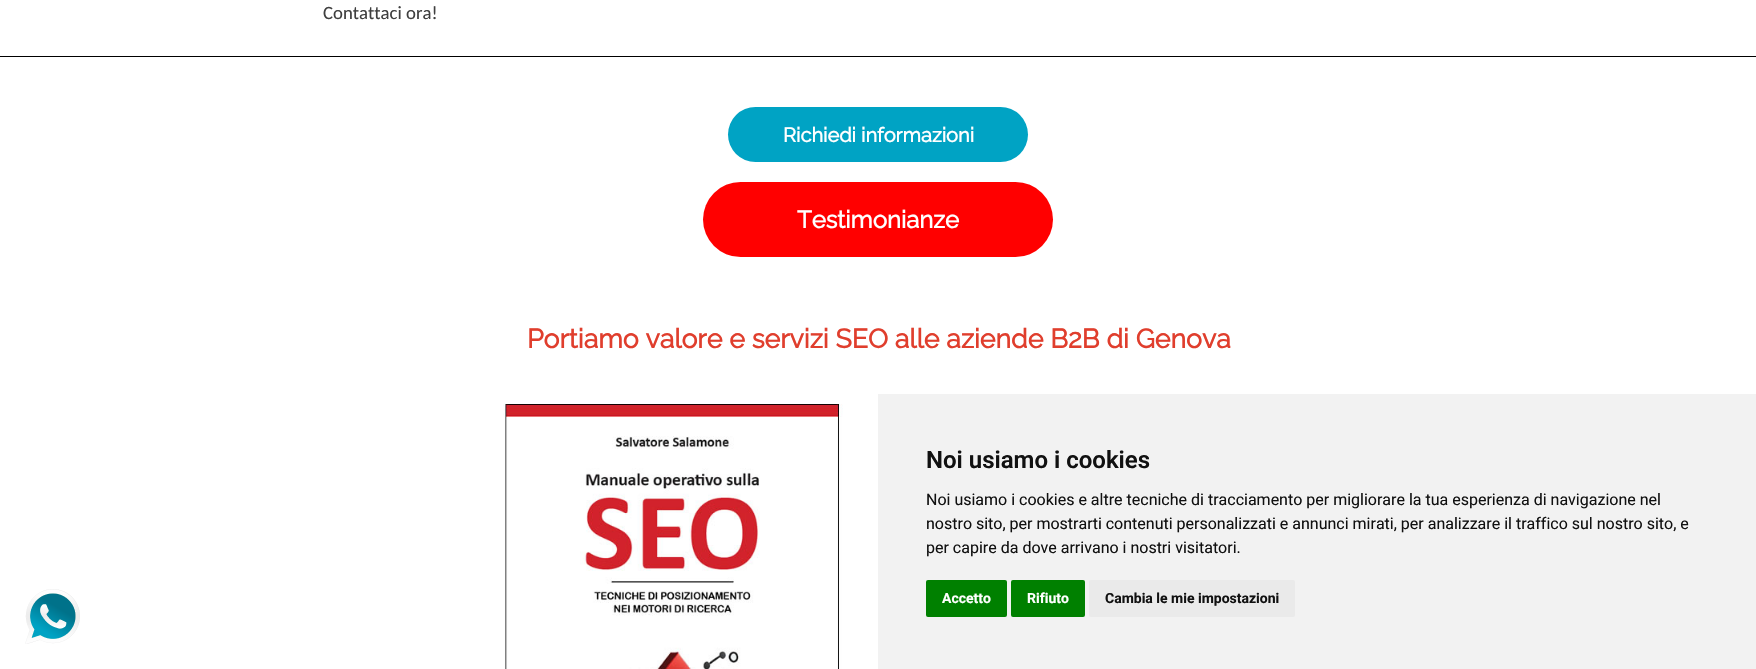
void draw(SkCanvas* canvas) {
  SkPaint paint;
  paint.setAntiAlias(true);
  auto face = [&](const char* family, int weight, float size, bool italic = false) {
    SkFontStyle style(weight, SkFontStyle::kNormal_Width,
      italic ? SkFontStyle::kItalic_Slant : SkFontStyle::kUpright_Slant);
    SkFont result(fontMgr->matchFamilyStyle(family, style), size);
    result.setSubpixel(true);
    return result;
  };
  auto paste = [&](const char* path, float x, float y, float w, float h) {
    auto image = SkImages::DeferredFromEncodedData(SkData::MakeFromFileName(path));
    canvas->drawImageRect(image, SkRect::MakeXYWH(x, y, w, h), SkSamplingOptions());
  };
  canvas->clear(0xffffffff);
  paint.setColor(0xff000000);
  canvas->drawRect(SkRect::MakeXYWH(0, 56, 1756, 1), paint);
  paint.setColor(0xff00a3c4);
  canvas->drawRoundRect(SkRect::MakeXYWH(728, 107, 300, 55), 27.5f, 27.5f, paint);
  paint.setColor(0xffff0000);
  canvas->drawRoundRect(SkRect::MakeXYWH(703, 182, 350, 75), 37.5f, 37.5f, paint);
  paste("img/1.png", 503, 404, 340, 265);
  paint.setColor(0xfff2f2f2);
  canvas->drawRect(SkRect::MakeXYWH(878, 394, 878, 275), paint);
  paint.setColor(0xff008000);
  canvas->drawRoundRect(SkRect::MakeXYWH(926, 580, 81, 37), 2, 2, paint);
  canvas->drawRoundRect(SkRect::MakeXYWH(1011, 580, 74, 37), 2, 2, paint);
  paint.setColor(0xffeaeaea);
  canvas->drawRoundRect(SkRect::MakeXYWH(1089, 580, 206, 37), 2, 2, paint);
  paste("img/2.png", 25, 589, 55, 55);
  auto f0 = face("Carlito", 400, 18.75f);
  paint.setColor(0xff3f3f3f);
  canvas->drawString("Contattaci ora!", 323, 19, f0, paint);
  auto f1 = face("Raleway", 700, 20);
  paint.setColor(0xffffffff);
  canvas->drawString("Richiedi informazioni", 783, 142, f1, paint);
  auto f2 = face("Raleway", 700, 24);
  canvas->drawString("Testimonianze", 797, 228, f2, paint);
  auto f3 = face("Raleway", 700, 26.7f);
  paint.setColor(0xffe03e2d);
  canvas->drawString("Portiamo valore e servizi SEO alle aziende B2B di Genova", 527, 348, f3, paint);
  auto f4 = face("Roboto", 600, 24);
  paint.setColor(0xff111111);
  canvas->drawString("Noi usiamo i cookies", 926, 468, f4, paint);
  auto f5 = face("Roboto", 400, 16);
  {
    const struct { const char* s; float x, y; } items[] = {
      {"Noi usiamo i cookies e altre tecniche di tracciamento per migliorare la tua esperienza di navigazione nel", 926, 505},
      {"nostro sito, per mostrarti contenuti personalizzati e annunci mirati, per analizzare il traffico sul nostro sito, e", 926, 529},
      {"per capire da dove arrivano i nostri visitatori.", 926, 553},
    };
    for (auto [s, x, y] : items) {
      canvas->drawString(s, x, y, f5, paint);
    }
  }
  auto f6 = face("Roboto", 700, 14);
  paint.setColor(0xffffffff);
  canvas->drawString("Accetto", 942, 603, f6, paint);
  canvas->drawString("Rifiuto", 1027, 603, f6, paint);
  paint.setColor(0xff111111);
  canvas->drawString("Cambia le mie impostazioni", 1105, 603, f6, paint);
}
